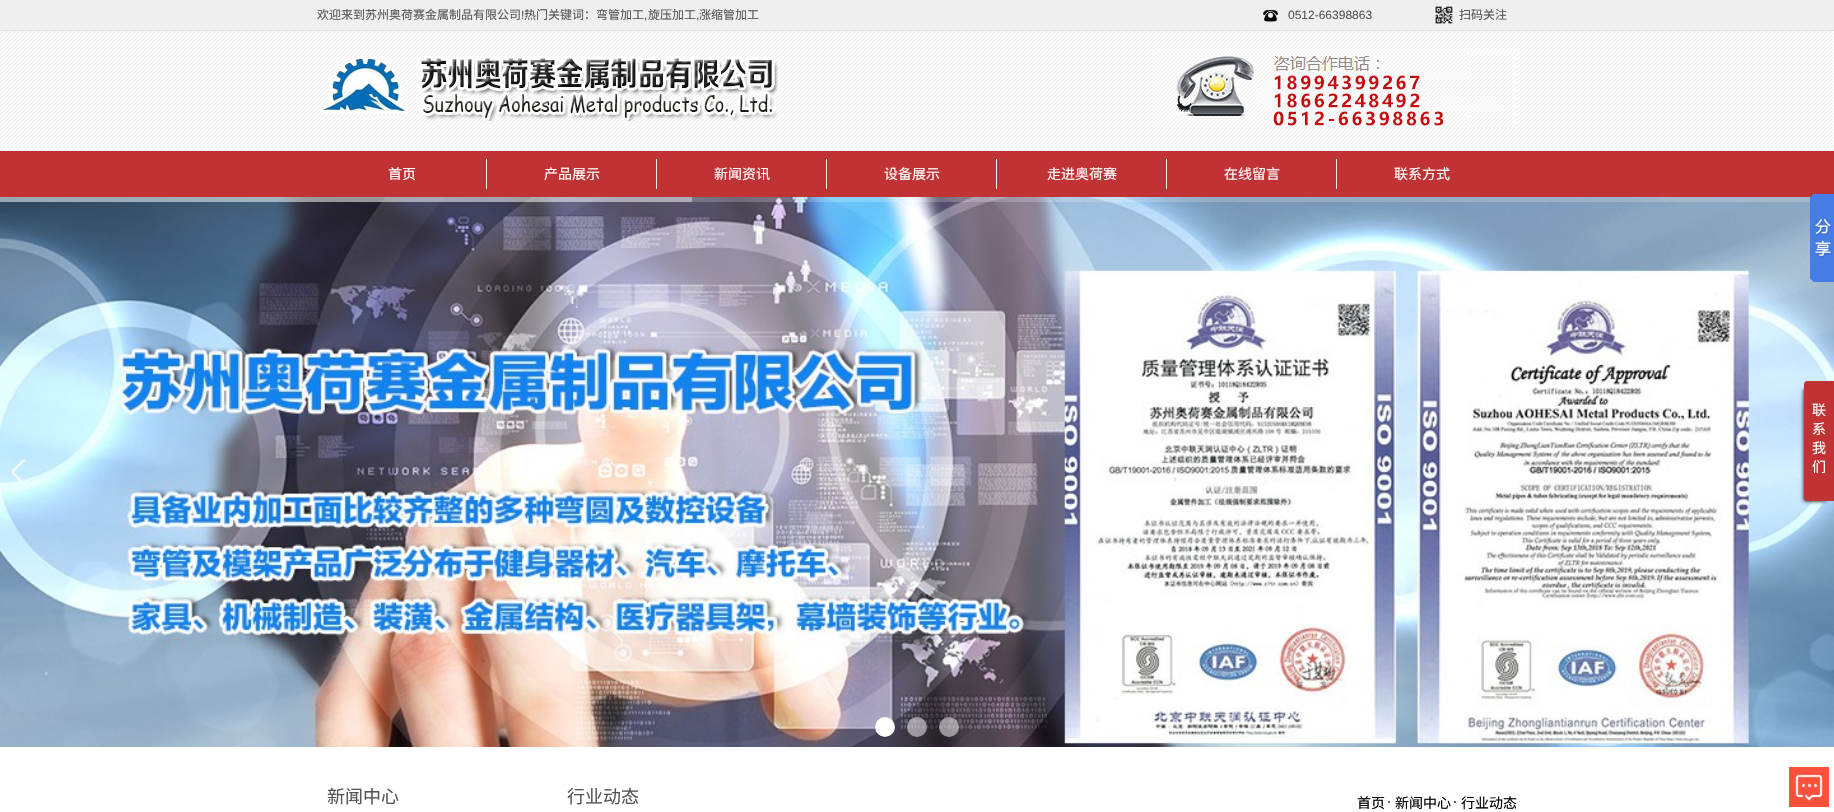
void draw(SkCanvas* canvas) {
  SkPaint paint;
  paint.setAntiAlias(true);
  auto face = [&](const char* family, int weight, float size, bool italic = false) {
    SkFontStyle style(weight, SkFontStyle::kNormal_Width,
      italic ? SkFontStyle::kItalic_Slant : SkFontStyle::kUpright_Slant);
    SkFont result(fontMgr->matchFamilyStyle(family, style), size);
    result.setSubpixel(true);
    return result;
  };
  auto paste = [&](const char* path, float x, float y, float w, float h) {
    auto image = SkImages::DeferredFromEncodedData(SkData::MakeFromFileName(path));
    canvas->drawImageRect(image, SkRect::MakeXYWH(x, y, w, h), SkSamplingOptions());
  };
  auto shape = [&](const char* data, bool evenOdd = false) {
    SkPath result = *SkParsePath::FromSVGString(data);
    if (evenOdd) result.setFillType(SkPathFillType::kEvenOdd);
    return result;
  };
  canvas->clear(0xffffffff);
  paint.setColor(0xffefefef);
  canvas->drawRect(SkRect::MakeXYWH(0, 0, 1834, 30), paint);
  paint.setColor(0xffdddddd);
  canvas->drawRect(SkRect::MakeXYWH(0, 30, 1834, 1), paint);
  paste("img/1.png", 1263, 9, 15, 13);
  paste("img/2.png", 1435, 6, 18, 18);
  paste("img/3.png", 0, 31, 1834, 120);
  paste("img/4.png", 320, 55, 458, 66);
  paste("img/5.png", 1159, 51, 358, 77);
  {
    const struct { float x, y, w, h; SkColor color; } items[] = {
      {0, 151, 1834, 46, 0xffc13234},
      {486, 159, 1, 30, 0xffeeeeee},
      {656, 159, 1, 30, 0xffeeeeee},
      {826, 159, 1, 30, 0xffeeeeee},
      {996, 159, 1, 30, 0xffeeeeee},
      {1166, 159, 1, 30, 0xffeeeeee},
      {1336, 159, 1, 30, 0xffeeeeee},
    };
    for (auto [x, y, w, h, color] : items) {
      paint.setColor(color);
      canvas->drawRect(SkRect::MakeXYWH(x, y, w, h), paint);
    }
  }
  paste("img/7.png", 0, 197, 1834, 550);
  paste("img/6.png", 1810, 194, 24, 88);
  paint.setColor(0x33ffffff);
  canvas->drawRect(SkRect::MakeXYWH(0, 197, 1810, 5), paint);
  paint.setColor(0x66ffffff);
  canvas->drawRect(SkRect::MakeXYWH(0, 197, 692, 5), paint);
  paint.setColor(0xb3ffffff);
  canvas->drawPath(shape("M26 460L36 470C37 471 37 473 36 474L26 484C25 485.5 23 485.5 22 484L12 474C11 473 11 471 12 470L22 460C23 459 25 459 26 460ZM26 460C40.5 474.5 40.5 470 26 484L14 472Z", true), paint);
  canvas->drawPath(shape("M1812 460L1822 470C1823 471 1823 473 1822 474L1812 484C1811 485.5 1809 485.5 1808 484L1798 474C1797 473 1797 471 1798 470L1808 460C1809 459 1811 459 1812 460ZM1810 462L1820 472L1808 484C1793.5 470 1793.5 474.5 1808 460Z", true), paint);
  paint.setColor(0x4d000000);
  paint.setMaskFilter(SkMaskFilter::MakeBlur(kNormal_SkBlurStyle, 0.5f));
  canvas->drawRoundRect(SkRect::MakeXYWH(875, 718, 20, 20), 10, 10, paint);
  paint.setMaskFilter(nullptr);
  paint.setColor(0xffffffff);
  canvas->drawCircle(885, 727, 10, paint);
  paint.setColor(0x80ffffff);
  canvas->drawCircle(917, 727, 10, paint);
  canvas->drawCircle(949, 727, 10, paint);
  paint.setColor(0xff000000);
  paint.setMaskFilter(SkMaskFilter::MakeBlur(kNormal_SkBlurStyle, 2));
  canvas->drawRect(SkRect::MakeXYWH(1804, 389, 22, 112), paint);
  paint.setMaskFilter(nullptr);
  paint.setColor(0xffc13234);
  canvas->drawPath(shape("M1807 381H1834V501H1807C1805.5 501 1804 499.5 1804 498V384C1804 382.5 1805.5 381 1807 381Z"), paint);
  {
    const struct { float x, y, w, h; SkColor color; } items[] = {
      {1388, 801, 2, 2, 0xff666666},
      {1454, 801, 2, 2, 0xff666666},
      {1789, 767, 40, 40, 0xfffb503c},
    };
    for (auto [x, y, w, h, color] : items) {
      paint.setColor(color);
      canvas->drawRect(SkRect::MakeXYWH(x, y, w, h), paint);
    }
  }
  paste("img/8.png", 1795, 774, 28, 27);
  auto f0 = face("Noto Sans CJK SC", 400, 12);
  paint.setColor(0xff555555);
  canvas->drawString("欢迎来到苏州奥荷赛金属制品有限公司", 317, 19, f0, paint);
  auto f1 = face("Liberation Sans", 400, 12);
  canvas->drawString("!", 521, 19, f1, paint);
  canvas->drawString("热门关键词：弯管加工", 524, 19, f0, paint);
  canvas->drawString(",", 644, 19, f1, paint);
  canvas->drawString("旋压加工", 648, 19, f0, paint);
  canvas->drawString(",", 696, 19, f1, paint);
  canvas->drawString("涨缩管加工", 699, 19, f0, paint);
  canvas->drawString("0512-66398863", 1288, 19, f1, paint);
  canvas->drawString("扫码关注", 1459, 19, f0, paint);
  auto f2 = face("Noto Sans CJK SC", 400, 14);
  paint.setColor(0xffffffff);
  {
    const struct { const char* s; float x, y; } items[] = {
      {"首页", 388, 179},
      {"产品展示", 544, 179},
      {"新闻资讯", 714, 179},
      {"设备展示", 884, 179},
      {"走进奥荷赛", 1047, 179},
      {"在线留言", 1224, 179},
      {"联系方式", 1394, 179},
      {"联", 1812, 415},
      {"系", 1812, 434},
      {"我", 1812, 453},
      {"们", 1812, 472},
    };
    for (auto [s, x, y] : items) {
      canvas->drawString(s, x, y, f2, paint);
    }
  }
  auto f3 = face("Noto Sans CJK SC", 400, 18);
  paint.setColor(0xff555555);
  canvas->drawString("新闻中心", 327, 803, f3, paint);
  canvas->drawString("行业动态", 567, 803, f3, paint);
  paint.setColor(0xff000000);
  {
    const struct { const char* s; float x, y; } items[] = {
      {"首页", 1357, 808},
      {"新闻中心", 1395, 808},
      {"行业动态", 1461, 808},
    };
    for (auto [s, x, y] : items) {
      canvas->drawString(s, x, y, f2, paint);
    }
  }
}
